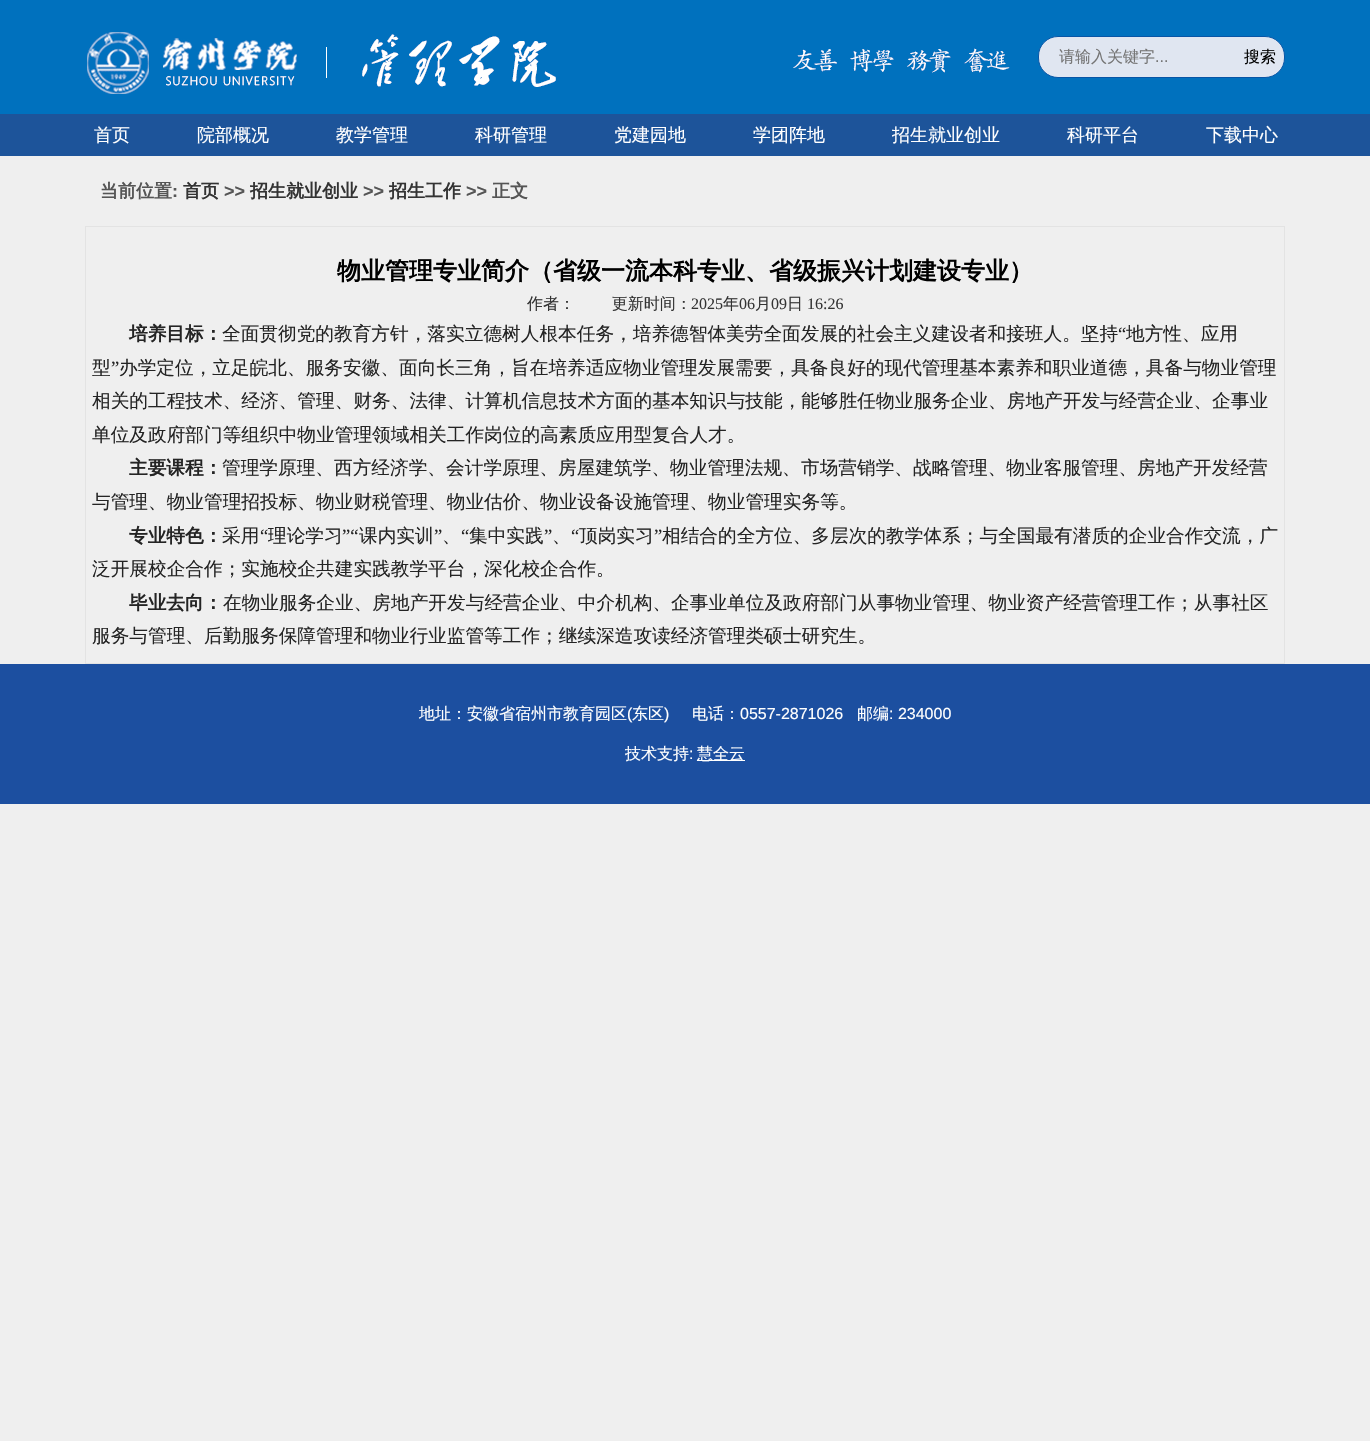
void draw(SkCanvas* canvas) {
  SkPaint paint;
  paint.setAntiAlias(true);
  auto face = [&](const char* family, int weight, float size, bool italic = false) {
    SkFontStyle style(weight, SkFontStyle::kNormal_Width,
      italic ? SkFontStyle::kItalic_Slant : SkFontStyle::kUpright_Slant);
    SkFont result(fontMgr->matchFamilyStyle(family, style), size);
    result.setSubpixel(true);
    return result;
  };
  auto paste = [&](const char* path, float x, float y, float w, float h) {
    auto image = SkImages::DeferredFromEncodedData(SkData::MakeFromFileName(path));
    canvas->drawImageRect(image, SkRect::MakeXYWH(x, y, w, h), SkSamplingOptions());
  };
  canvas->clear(0xffefefef);
  paste("img/1.png", 0, 0, 1370, 114);
  paint.setColor(0xffe0e6f1);
  canvas->drawRoundRect(SkRect::MakeXYWH(1038.5f, 36.5f, 246, 41), 19.5f, 19.5f, paint);
  paint.setStroke(true);
  paint.setStrokeWidth(1);
  paint.setColor(0xff0855a6);
  canvas->drawRoundRect(SkRect::MakeXYWH(1038.5f, 36.5f, 246, 41), 19.5f, 19.5f, paint);
  paint.setStroke(false);
  paint.setColor(0xff1d549a);
  canvas->drawRect(SkRect::MakeXYWH(0, 114, 1370, 42), paint);
  paint.setStroke(true);
  paint.setColor(0xffe3e3e3);
  canvas->drawRect(SkRect::MakeXYWH(85.5f, 226.5f, 1199, 437), paint);
  paint.setStroke(false);
  paint.setColor(0xff1c4fa0);
  canvas->drawRect(SkRect::MakeXYWH(0, 664, 1370, 140), paint);
  paint.setColor(0xffffffff);
  canvas->drawRect(SkRect::MakeXYWH(697, 760, 48, 1), paint);
  auto f0 = face("WenQuanYi Zen Hei", 500, 16);
  paint.setColor(0xff757575);
  canvas->drawString("请输入关键字", 1059, 62, f0, paint);
  auto f1 = face("Liberation Sans", 400, 16);
  canvas->drawString("...", 1155, 62, f1, paint);
  paint.setColor(0xff000000);
  canvas->drawString("搜索", 1244, 62, f0, paint);
  auto f2 = face("WenQuanYi Zen Hei", 500, 18);
  paint.setColor(0xffffffff);
  {
    const struct { const char* s; float x, y; } items[] = {
      {"首页", 94, 141},
      {"院部概况", 197, 141},
      {"教学管理", 336, 141},
      {"科研管理", 475, 141},
      {"党建园地", 614, 141},
      {"学团阵地", 753, 141},
      {"招生就业创业", 892, 141},
      {"科研平台", 1067, 141},
      {"下载中心", 1206, 141},
    };
    for (auto [s, x, y] : items) {
      canvas->drawString(s, x, y, f2, paint);
    }
  }
  auto f3 = face("WenQuanYi Zen Hei", 700, 18);
  paint.setColor(0xff555555);
  canvas->drawString("当前位置", 100, 197, f3, paint);
  auto f4 = face("Liberation Sans", 700, 18);
  canvas->drawString(":", 172, 197, f4, paint);
  paint.setColor(0xff333333);
  canvas->drawString("首页", 183, 197, f3, paint);
  paint.setColor(0xff555555);
  canvas->drawString(">>", 224, 197, f4, paint);
  paint.setColor(0xff333333);
  canvas->drawString("招生就业创业", 250, 197, f3, paint);
  paint.setColor(0xff555555);
  canvas->drawString(">>", 363, 197, f4, paint);
  paint.setColor(0xff333333);
  canvas->drawString("招生工作", 389, 197, f3, paint);
  paint.setColor(0xff555555);
  canvas->drawString(">>", 466, 197, f4, paint);
  canvas->drawString("正文", 492, 197, f3, paint);
  auto f5 = face("WenQuanYi Zen Hei", 700, 24);
  paint.setColor(0xff000000);
  canvas->drawString("物业管理专业简介（省级一流本科专业、省级振兴计划建设专业）", 337, 279, f5, paint);
  paint.setColor(0xff333333);
  canvas->drawString("作者：　　 更新时间：", 527, 309, f0, paint);
  auto f6 = face("Liberation Serif", 400, 16);
  canvas->drawString("2025", 691, 309, f6, paint);
  canvas->drawString("年", 723, 309, f0, paint);
  canvas->drawString("06", 739, 309, f6, paint);
  canvas->drawString("月", 755, 309, f0, paint);
  canvas->drawString("09", 771, 309, f6, paint);
  canvas->drawString("日", 787, 309, f0, paint);
  canvas->drawString("16:26", 807, 309, f6, paint);
  auto f7 = face("WenQuanYi Zen Hei", 700, 18.67f);
  paint.setColor(0xff242424);
  canvas->drawString("培养目标：", 129, 340, f7, paint);
  auto f8 = face("WenQuanYi Zen Hei", 500, 18.67f);
  canvas->drawString("全面贯彻党的教育方针，落实立德树人根本任务，培养德智体美劳全面发展的社会主义建设者和接班人。坚持", 222, 340, f8, paint);
  auto f9 = face("Liberation Serif", 400, 18.67f);
  canvas->drawString("“", 1118, 340, f9, paint);
  canvas->drawString("地方性、应用", 1126, 340, f8, paint);
  canvas->drawString("型", 92, 374, f8, paint);
  canvas->drawString("”", 111, 374, f9, paint);
  {
    const struct { const char* s; float x, y; } items[] = {
      {"办学定位，立足皖北、服务安徽、面向长三角，旨在培养适应物业管理发展需要，具备良好的现代管理基本素养和职业道德，具备与物业管理", 119, 374},
      {"相关的工程技术、经济、管理、财务、法律、计算机信息技术方面的", 92, 407},
      {"基本知识与技能，能够胜任物业服务企业、房地产开发与经营企业、企事业", 652, 407},
      {"单位及政府部门等组织中物业管理领域相关工作岗位的高素质应用型复合人才。", 92, 441},
    };
    for (auto [s, x, y] : items) {
      canvas->drawString(s, x, y, f8, paint);
    }
  }
  canvas->drawString("主要课程：", 129, 474, f7, paint);
  {
    const struct { const char* s; float x, y; } items[] = {
      {"管理学原理、西方经济学、会计学原理、房屋建筑学、物业管理法规、", 222, 474},
      {"市场营销学、战略管理、物业客服管理、房地产开发经营", 801, 474},
      {"与管理、物业管理招投标、物业财税管理、物业估价、物业设备设施管理、物业管理实务等。", 92, 508},
    };
    for (auto [s, x, y] : items) {
      canvas->drawString(s, x, y, f8, paint);
    }
  }
  canvas->drawString("专业特色：", 129, 542, f7, paint);
  canvas->drawString("采用", 222, 542, f8, paint);
  canvas->drawString("“", 260, 542, f9, paint);
  canvas->drawString("理论学习", 268, 542, f8, paint);
  canvas->drawString("”“", 342, 542, f9, paint);
  canvas->drawString("课内实训", 359, 542, f8, paint);
  canvas->drawString("”", 434, 542, f9, paint);
  canvas->drawString("“", 461, 542, f9, paint);
  canvas->drawString("集中实践", 469, 542, f8, paint);
  canvas->drawString("”", 544, 542, f9, paint);
  canvas->drawString("“", 571, 542, f9, paint);
  canvas->drawString("顶岗实习", 579, 542, f8, paint);
  canvas->drawString("”", 654, 542, f9, paint);
  {
    const struct { const char* s; float x, y; } items[] = {
      {"相结合的全方位、多层次的教学体系；与全国最有潜质的企业合作交流，广", 662, 542},
      {"、", 442, 542},
      {"、", 552, 542},
      {"泛开展校企合作；实施校企共建实践教学平台，深化校企合作。", 92, 575},
    };
    for (auto [s, x, y] : items) {
      canvas->drawString(s, x, y, f8, paint);
    }
  }
  canvas->drawString("毕业去向：", 129, 609, f7, paint);
  canvas->drawString("在物业服务企业、房地产开发与经营企业、中介机构、企事业单位及政府部门从事物业管理、物业资产经营管理工作；从事社区", 223, 609, f8, paint);
  canvas->drawString("服务与管理、后勤服务保障管理和物业行业监管等工作；继续深造攻读经济管理类硕士研究生。", 92, 642, f8, paint);
  paint.setColor(0xffffffff);
  canvas->drawString("地址：安徽省宿州市教育园区", 419, 719, f0, paint);
  canvas->drawString("(", 627, 719, f1, paint);
  canvas->drawString("东区", 632, 719, f0, paint);
  canvas->drawString(")", 664, 719, f1, paint);
  canvas->drawString("电话：", 692, 719, f0, paint);
  canvas->drawString("0557-2871026", 740, 719, f1, paint);
  canvas->drawString("邮编", 857, 719, f0, paint);
  canvas->drawString(": 234000", 889, 719, f1, paint);
  canvas->drawString("技术支持", 625, 759, f0, paint);
  canvas->drawString(":", 689, 759, f1, paint);
  canvas->drawString("慧全云", 697, 759, f0, paint);
}
